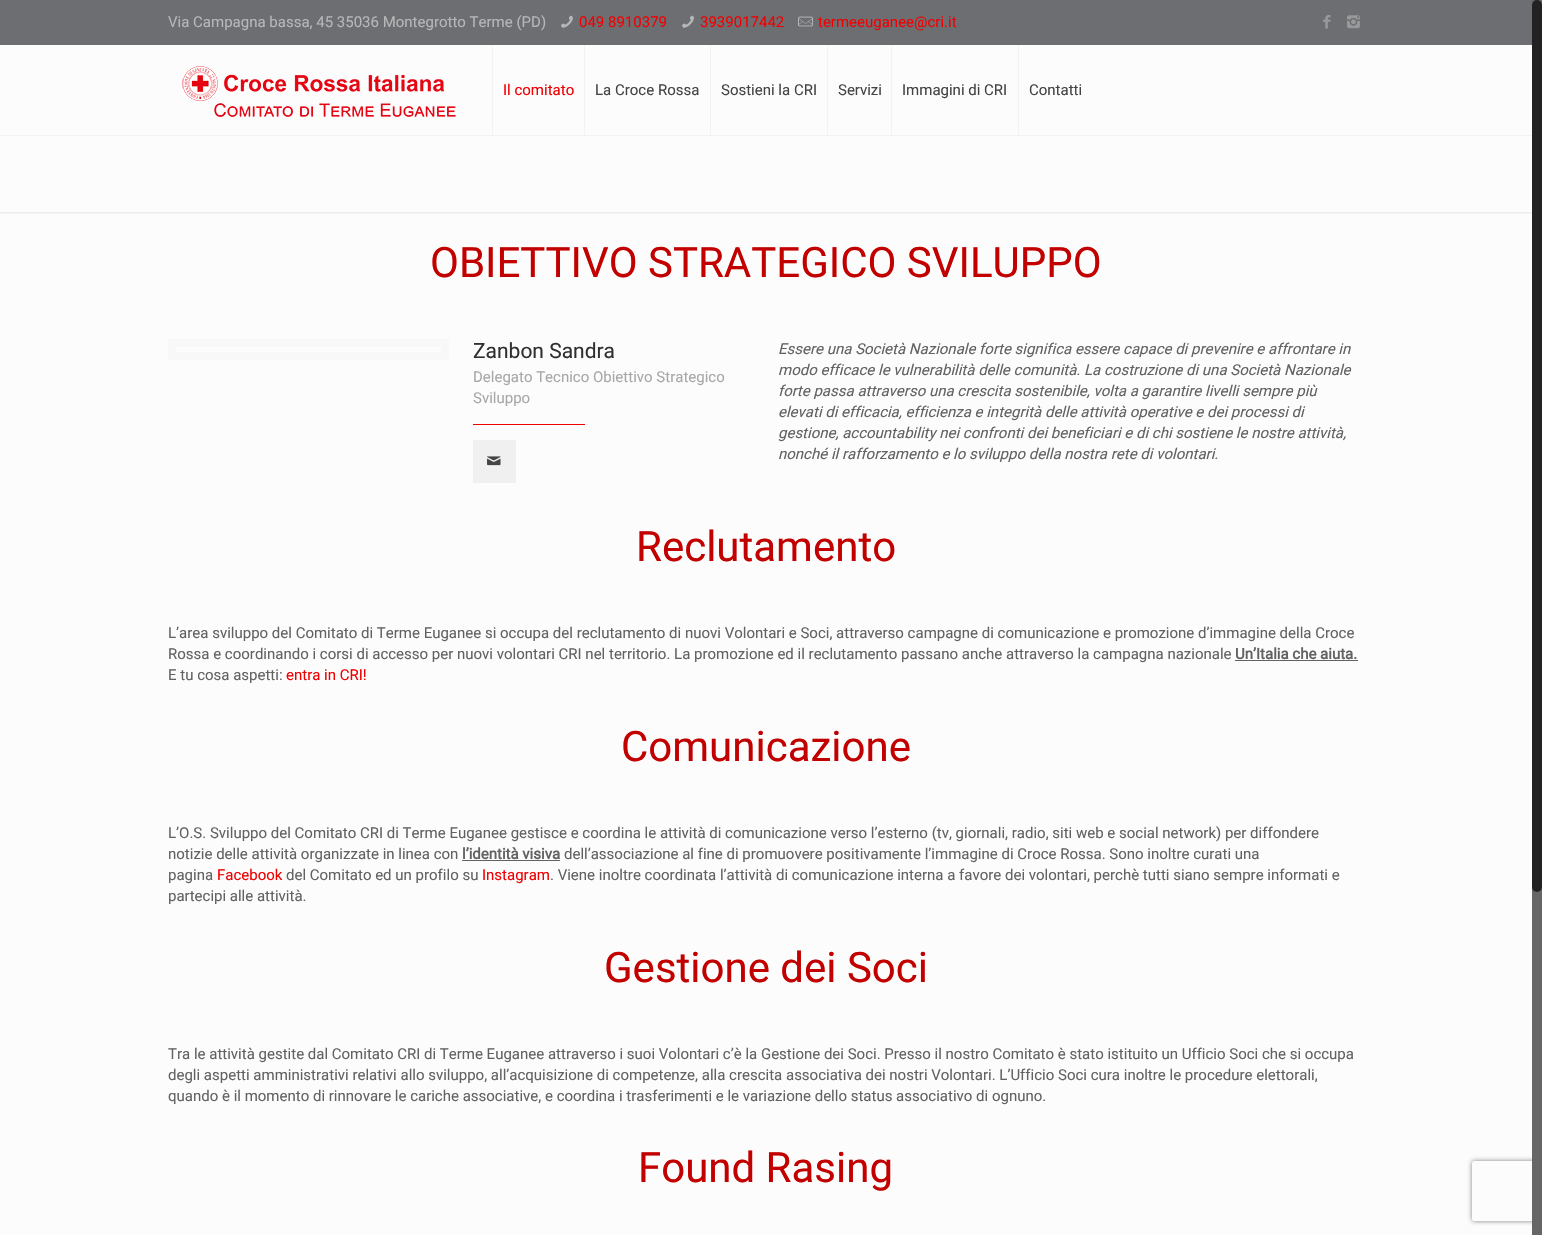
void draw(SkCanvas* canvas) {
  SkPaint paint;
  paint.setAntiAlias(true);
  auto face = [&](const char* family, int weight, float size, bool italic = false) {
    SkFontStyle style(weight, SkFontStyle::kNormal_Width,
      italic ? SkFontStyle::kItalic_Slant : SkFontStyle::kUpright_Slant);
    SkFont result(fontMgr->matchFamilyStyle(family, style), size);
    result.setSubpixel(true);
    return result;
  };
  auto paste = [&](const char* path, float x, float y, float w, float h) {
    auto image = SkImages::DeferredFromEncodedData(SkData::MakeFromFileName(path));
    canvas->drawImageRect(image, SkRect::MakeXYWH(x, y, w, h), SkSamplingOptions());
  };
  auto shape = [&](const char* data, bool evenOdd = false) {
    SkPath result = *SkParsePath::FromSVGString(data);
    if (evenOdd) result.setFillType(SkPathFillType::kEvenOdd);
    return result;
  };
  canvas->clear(0xfffcfcfc);
  paint.setColor(0xff6d6e71);
  canvas->drawRect(SkRect::MakeXYWH(0, 0, 1532, 45), paint);
  paste("img/1.png", 561, 15, 12, 13);
  paste("img/1.png", 682, 15, 12, 13);
  paste("img/2.png", 798, 16, 15, 11);
  paste("img/3.png", 1323, 15, 8, 14);
  paste("img/4.png", 1347, 15, 13, 14);
  paint.setColor(0xfff2f2f2);
  canvas->drawRect(SkRect::MakeXYWH(0, 135, 1532, 1), paint);
  paste("img/5.png", 182, 66, 274, 51);
  {
    const struct { float x, y, w, h; SkColor color; } items[] = {
      {584, 45, 1, 90, 0xfff2f2f2},
      {492, 45, 1, 90, 0xfff2f2f2},
      {710, 45, 1, 90, 0xfff2f2f2},
      {827, 45, 1, 90, 0xfff2f2f2},
      {891, 45, 1, 90, 0xfff2f2f2},
      {1018, 45, 1, 90, 0xfff2f2f2},
    };
    for (auto [x, y, w, h, color] : items) {
      paint.setColor(color);
      canvas->drawRect(SkRect::MakeXYWH(x, y, w, h), paint);
    }
  }
  paste("img/6.png", 0, 212, 1532, 2);
  paint.setStroke(true);
  paint.setStrokeWidth(8);
  paint.setColor(0xfff8f8f8);
  canvas->drawRect(SkRect::MakeXYWH(172, 343, 273, 13), paint);
  paint.setStroke(false);
  paint.setColor(0xfff00002);
  canvas->drawRect(SkRect::MakeXYWH(473, 424, 112, 1), paint);
  paint.setColor(0xfff0f0f0);
  canvas->drawRect(SkRect::MakeXYWH(473, 440, 43, 43), paint);
  paste("img/7.png", 487, 456, 14, 10);
  paint.setColor(0xff626262);
  canvas->drawRect(SkRect::MakeXYWH(1235, 660, 123, 1), paint);
  canvas->drawRect(SkRect::MakeXYWH(462, 860, 98, 1), paint);
  canvas->save();
  canvas->clipPath(shape("M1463 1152H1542V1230H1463ZM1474 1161H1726C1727 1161 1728 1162 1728 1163V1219C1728 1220 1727 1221 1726 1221H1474C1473 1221 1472 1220 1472 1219V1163C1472 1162 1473 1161 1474 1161Z", true), true);
  paint.setColor(0xff808080);
  paint.setMaskFilter(SkMaskFilter::MakeBlur(kNormal_SkBlurStyle, 2.5f));
  canvas->drawRoundRect(SkRect::MakeXYWH(1472, 1161, 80, 60), 2, 2, paint);
  paint.setMaskFilter(nullptr);
  canvas->restore();
  paint.setColor(0xff666666);
  canvas->drawRect(SkRect::MakeXYWH(1532, 0, 10, 1235), paint);
  paint.setColor(0xff222222);
  canvas->drawRoundRect(SkRect::MakeXYWH(1532, 0, 10, 892), 5, 5, paint);
  auto f0 = face("Roboto", 400, 15);
  paint.setColor(0xffb6b7b8);
  canvas->drawString("Via Campagna bassa, 45 35036 Montegrotto Terme (PD)", 168, 27, f0, paint);
  paint.setColor(0xfff00002);
  {
    const struct { const char* s; float x, y; } items[] = {
      {"049 8910379", 579, 27},
      {"3939017442", 700, 27},
      {"termeeuganee@cri.it", 818, 27},
      {"Il comitato", 503, 95},
    };
    for (auto [s, x, y] : items) {
      canvas->drawString(s, x, y, f0, paint);
    }
  }
  paint.setColor(0xff444444);
  {
    const struct { const char* s; float x, y; } items[] = {
      {"La Croce Rossa", 595, 95},
      {"Sostieni la CRI", 721, 95},
      {"Servizi", 838, 95},
      {"Immagini di CRI", 902, 95},
      {"Contatti", 1029, 95},
    };
    for (auto [s, x, y] : items) {
      canvas->drawString(s, x, y, f0, paint);
    }
  }
  auto f1 = face("Roboto", 400, 42);
  paint.setColor(0xffc20000);
  canvas->drawString("OBIETTIVO STRATEGICO SVILUPPO", 430, 277, f1, paint);
  auto f2 = face("Roboto", 400, 21);
  paint.setColor(0xff303030);
  canvas->drawString("Zanbon Sandra", 473, 358, f2, paint);
  paint.setColor(0xffa8a8a8);
  canvas->drawString("Delegato Tecnico Obiettivo Strategico", 473, 382, f0, paint);
  canvas->drawString("Sviluppo", 473, 403, f0, paint);
  auto f3 = face("Roboto", 400, 15, true);
  paint.setColor(0xff626262);
  {
    const struct { const char* s; float x, y; } items[] = {
      {"Essere una Società Nazionale forte significa essere capace di prevenire e affrontare in", 778, 354},
      {"modo efficace le vulnerabilità delle comunità. La costruzione di una Società Nazionale", 778, 375},
      {"forte passa attraverso una crescita sostenibile, volta a garantire livelli sempre più", 778, 396},
      {"elevati di efficacia, efficienza e integrità delle attività operative e dei processi di", 778, 417},
      {"gestione, accountability nei confronti dei beneficiari e di chi sostiene le nostre attività,", 778, 438},
      {"nonché il rafforzamento e lo sviluppo della nostra rete di volontari.", 778, 459},
    };
    for (auto [s, x, y] : items) {
      canvas->drawString(s, x, y, f3, paint);
    }
  }
  paint.setColor(0xffc20000);
  canvas->drawString("Reclutamento", 636, 561, f1, paint);
  paint.setColor(0xff626262);
  canvas->drawString("L’area sviluppo del Comitato di Terme Euganee si occupa del reclutamento di nuovi Volontari e Soci, attraverso campagne di comunicazione e promozione d’immagine della Croce", 168, 638, f0, paint);
  canvas->drawString("Rossa e coordinando i corsi di accesso per nuovi volontari CRI nel territorio. La promozione ed il reclutamento passano anche attraverso la campagna nazionale", 168, 659, f0, paint);
  auto f4 = face("Roboto", 700, 15);
  canvas->drawString("Un’Italia che aiuta.", 1235, 659, f4, paint);
  canvas->drawString("E tu cosa aspetti:", 168, 680, f0, paint);
  paint.setColor(0xfff00002);
  canvas->drawString("entra in CRI!", 286, 680, f0, paint);
  paint.setColor(0xffc20000);
  canvas->drawString("Comunicazione", 621, 761, f1, paint);
  paint.setColor(0xff626262);
  canvas->drawString("L’O.S. Sviluppo del Comitato CRI di Terme Euganee gestisce e coordina le attività di comunicazione verso l’esterno (tv, giornali, radio, siti web e social network) per diffondere", 168, 838, f0, paint);
  canvas->drawString("notizie delle attività organizzate in linea con", 168, 859, f0, paint);
  canvas->drawString("l’identità visiva", 462, 859, f4, paint);
  canvas->drawString("dell’associazione al fine di promuovere positivamente l’immagine di Croce Rossa. Sono inoltre curati una", 564, 859, f0, paint);
  canvas->drawString("pagina", 168, 880, f0, paint);
  paint.setColor(0xfff00002);
  canvas->drawString("Facebook", 217, 880, f0, paint);
  paint.setColor(0xff626262);
  canvas->drawString("del Comitato ed un profilo su", 286, 880, f0, paint);
  paint.setColor(0xfff00002);
  canvas->drawString("Instagram", 482, 880, f0, paint);
  paint.setColor(0xff626262);
  canvas->drawString(". Viene inoltre coordinata l’attività di comunicazione interna a favore dei volontari, perchè tutti siano sempre informati e", 550, 880, f0, paint);
  canvas->drawString("partecipi alle attività.", 168, 901, f0, paint);
  paint.setColor(0xffc20000);
  canvas->drawString("Gestione dei Soci", 604, 982, f1, paint);
  paint.setColor(0xff626262);
  {
    const struct { const char* s; float x, y; } items[] = {
      {"Tra le attività gestite dal Comitato CRI di Terme Euganee attraverso i suoi Volontari c’è la Gestione dei Soci. Presso il nostro Comitato è stato istituito un Ufficio Soci che si occupa", 168, 1059},
      {"degli aspetti amministrativi relativi allo sviluppo, all’acquisizione di competenze, alla crescita associativa dei nostri Volontari. L’Ufficio Soci cura inoltre le procedure elettorali,", 168, 1080},
      {"quando è il momento di rinnovare le cariche associative, e coordina i trasferimenti e le variazione dello status associativo di ognuno.", 168, 1101},
    };
    for (auto [s, x, y] : items) {
      canvas->drawString(s, x, y, f0, paint);
    }
  }
  paint.setColor(0xffc20000);
  canvas->drawString("Found Rasing", 638, 1182, f1, paint);
}
